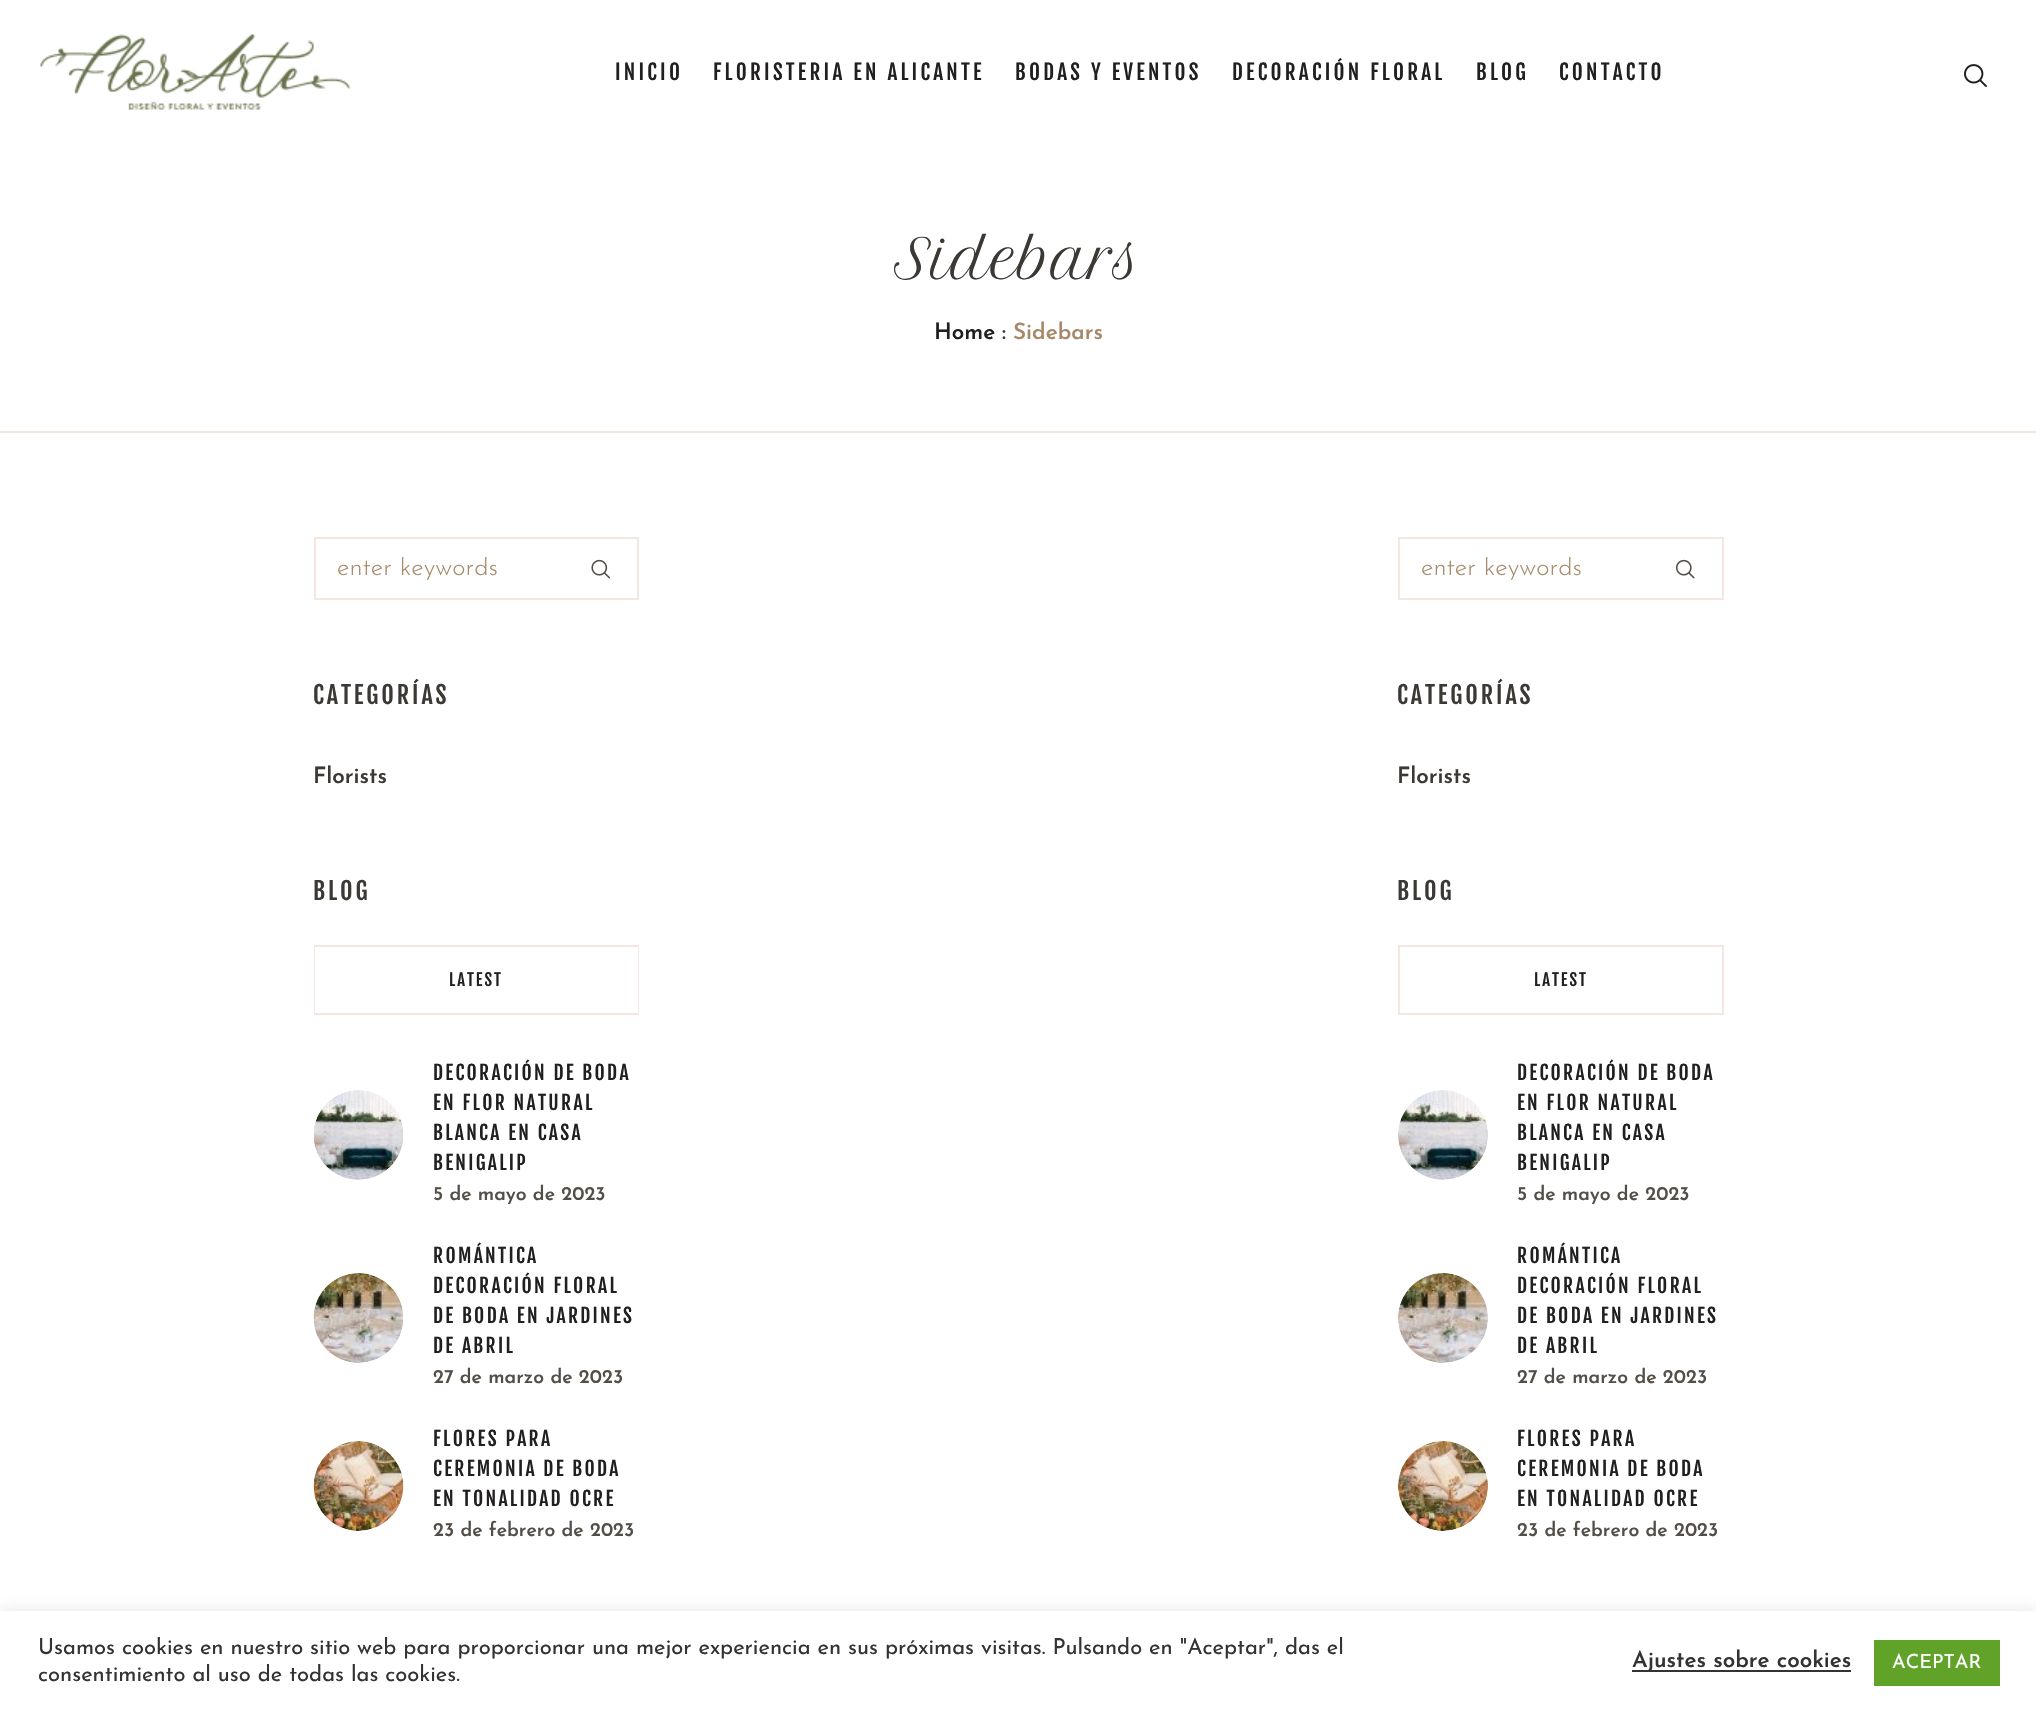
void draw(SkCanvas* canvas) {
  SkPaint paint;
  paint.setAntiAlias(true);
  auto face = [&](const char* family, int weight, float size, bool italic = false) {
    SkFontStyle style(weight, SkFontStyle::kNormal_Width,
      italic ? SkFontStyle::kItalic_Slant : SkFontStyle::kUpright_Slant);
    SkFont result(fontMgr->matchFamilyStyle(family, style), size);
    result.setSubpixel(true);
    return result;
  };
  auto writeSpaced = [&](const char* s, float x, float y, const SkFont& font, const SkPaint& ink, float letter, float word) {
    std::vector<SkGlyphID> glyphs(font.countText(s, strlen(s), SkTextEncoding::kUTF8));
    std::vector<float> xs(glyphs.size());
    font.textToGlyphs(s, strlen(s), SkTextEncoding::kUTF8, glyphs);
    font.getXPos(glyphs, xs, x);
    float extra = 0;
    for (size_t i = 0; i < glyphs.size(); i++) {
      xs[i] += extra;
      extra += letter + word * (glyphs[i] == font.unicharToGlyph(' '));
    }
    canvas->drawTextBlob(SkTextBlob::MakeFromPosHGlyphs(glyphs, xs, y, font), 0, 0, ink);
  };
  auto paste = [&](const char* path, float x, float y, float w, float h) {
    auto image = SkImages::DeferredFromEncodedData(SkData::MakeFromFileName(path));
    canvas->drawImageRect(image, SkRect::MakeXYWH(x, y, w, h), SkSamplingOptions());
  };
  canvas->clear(0xffffffff);
  paste("img/1.png", 40, 34, 310, 76);
  paste("img/2.png", 1964, 64, 23, 23);
  paint.setColor(0xfff4e7e0);
  canvas->drawRect(SkRect::MakeXYWH(0, 431, 2036, 2), paint);
  paint.setStroke(true);
  paint.setStrokeWidth(2);
  canvas->drawRect(SkRect::MakeXYWH(315, 538, 323, 61), paint);
  paste("img/3.png", 591, 559, 19, 20);
  canvas->drawRect(SkRect::MakeXYWH(315, 946, 323, 67), paint);
  paint.setStroke(false);
  paint.setColor(0xffffffff);
  canvas->drawRect(SkRect::MakeXYWH(315, 947, 323, 66), paint);
  paint.setColor(0xfff4e7e0);
  canvas->drawRect(SkRect::MakeXYWH(314, 1014, 325, 1), paint);
  paste("img/4.png", 313, 1090, 91, 90);
  paste("img/5.png", 313, 1273, 91, 90);
  paste("img/6.png", 313, 1441, 91, 90);
  paint.setStroke(true);
  canvas->drawRect(SkRect::MakeXYWH(1399, 538, 324, 61), paint);
  paste("img/7.png", 1675, 559, 20, 20);
  canvas->drawRect(SkRect::MakeXYWH(1399, 946, 324, 67), paint);
  paint.setStroke(false);
  paint.setColor(0xffffffff);
  canvas->drawRect(SkRect::MakeXYWH(1400, 1012, 322, 1), paint);
  paint.setColor(0xfff4e7e0);
  canvas->drawRect(SkRect::MakeXYWH(1398, 1014, 326, 1), paint);
  paste("img/8.png", 1398, 1090, 90, 90);
  paste("img/9.png", 1398, 1273, 90, 90);
  paste("img/10.png", 1398, 1441, 90, 90);
  paint.setColor(0x4dacabab);
  paint.setMaskFilter(SkMaskFilter::MakeBlur(kNormal_SkBlurStyle, 7.5f));
  canvas->drawRect(SkRect::MakeXYWH(0, 1610, 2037, 103), paint);
  paint.setMaskFilter(nullptr);
  {
    const struct { float x, y, w, h; SkColor color; } items[] = {
      {0, 1611, 2036, 103, 0xffffffff},
      {1632, 1670, 219, 2, 0xff333333},
      {1874, 1640, 126, 46, 0xff61a229},
    };
    for (auto [x, y, w, h, color] : items) {
      paint.setColor(color);
      canvas->drawRect(SkRect::MakeXYWH(x, y, w, h), paint);
    }
  }
  auto f0 = face("Fjalla One", 400, 21);
  paint.setColor(0xff211f1f);
  {
    const struct { const char* s; float x, y; } items[] = {
      {"INICIO", 615, 80},
      {"FLORISTERIA EN ALICANTE", 713, 80},
      {"BODAS Y EVENTOS", 1015, 80},
      {"DECORACIÓN FLORAL", 1232, 80},
      {"BLOG", 1476, 80},
      {"CONTACTO", 1559, 80},
    };
    for (auto [s, x, y] : items) {
      writeSpaced(s, x, y, f0, paint, 3.25f, 0);
    }
  }
  auto f1 = face("Petit Formal Script", 400, 54);
  paint.setColor(0xff3c3834);
  canvas->drawString("Sidebars", 894, 279, f1, paint);
  auto f2 = face("Josefin Sans", 600, 22.5f);
  paint.setColor(0xff211f1f);
  canvas->drawString("Home", 934, 339, f2, paint);
  paint.setColor(0xff3c3834);
  canvas->drawString(":", 1002, 339, f2, paint);
  paint.setColor(0xffa7896a);
  canvas->drawString("Sidebars", 1013, 339, f2, paint);
  canvas->save();
  canvas->clipRect(SkRect::MakeXYWH(338, 557, 231, 25));
  auto f3 = face("Josefin Sans", 300, 25.5f);
  canvas->drawString("enter keywords", 337, 575, f3, paint);
  canvas->restore();
  auto f4 = face("Fjalla One", 400, 24);
  paint.setColor(0xff3c3834);
  writeSpaced("CATEGORÍAS", 313, 704, f4, paint, 2.9f, 0);
  canvas->drawString("Florists", 313, 783, f2, paint);
  writeSpaced("BLOG", 313, 900, f4, paint, 2.9f, 0);
  auto f5 = face("Fjalla One", 400, 16.5f);
  paint.setColor(0xff211f1f);
  writeSpaced("LATEST", 449, 986, f5, paint, 2, 0);
  auto f6 = face("Fjalla One", 400, 19.5f);
  {
    const struct { const char* s; float x, y; } items[] = {
      {"DECORACIÓN DE BODA", 433, 1080},
      {"EN FLOR NATURAL", 433, 1110},
      {"BLANCA EN CASA", 433, 1140},
      {"BENIGALIP", 433, 1170},
    };
    for (auto [s, x, y] : items) {
      writeSpaced(s, x, y, f6, paint, 2.3f, 0);
    }
  }
  auto f7 = face("Josefin Sans", 600, 19.5f);
  paint.setColor(0xff544e48);
  canvas->drawString("5 de mayo de 2023", 433, 1200, f7, paint);
  paint.setColor(0xff211f1f);
  {
    const struct { const char* s; float x, y; } items[] = {
      {"ROMÁNTICA", 433, 1263},
      {"DECORACIÓN FLORAL", 433, 1293},
      {"DE BODA EN JARDINES", 433, 1323},
      {"DE ABRIL", 433, 1353},
    };
    for (auto [s, x, y] : items) {
      writeSpaced(s, x, y, f6, paint, 2.3f, 0);
    }
  }
  paint.setColor(0xff544e48);
  canvas->drawString("27 de marzo de 2023", 433, 1383, f7, paint);
  paint.setColor(0xff211f1f);
  {
    const struct { const char* s; float x, y; } items[] = {
      {"FLORES PARA", 433, 1446},
      {"CEREMONIA DE BODA", 433, 1476},
      {"EN TONALIDAD OCRE", 433, 1506},
    };
    for (auto [s, x, y] : items) {
      writeSpaced(s, x, y, f6, paint, 2.3f, 0);
    }
  }
  paint.setColor(0xff544e48);
  canvas->drawString("23 de febrero de 2023", 433, 1536, f7, paint);
  canvas->save();
  canvas->clipRect(SkRect::MakeXYWH(1422, 557, 231, 25));
  paint.setColor(0xffa7896a);
  canvas->drawString("enter keywords", 1421, 575, f3, paint);
  canvas->restore();
  paint.setColor(0xff3c3834);
  writeSpaced("CATEGORÍAS", 1397, 704, f4, paint, 2.9f, 0);
  canvas->drawString("Florists", 1397, 783, f2, paint);
  writeSpaced("BLOG", 1397, 900, f4, paint, 2.9f, 0);
  paint.setColor(0xff211f1f);
  writeSpaced("LATEST", 1534, 986, f5, paint, 2, 0);
  {
    const struct { const char* s; float x, y; } items[] = {
      {"DECORACIÓN DE BODA", 1517, 1080},
      {"EN FLOR NATURAL", 1517, 1110},
      {"BLANCA EN CASA", 1517, 1140},
      {"BENIGALIP", 1517, 1170},
    };
    for (auto [s, x, y] : items) {
      writeSpaced(s, x, y, f6, paint, 2.3f, 0);
    }
  }
  paint.setColor(0xff544e48);
  canvas->drawString("5 de mayo de 2023", 1517, 1200, f7, paint);
  paint.setColor(0xff211f1f);
  {
    const struct { const char* s; float x, y; } items[] = {
      {"ROMÁNTICA", 1517, 1263},
      {"DECORACIÓN FLORAL", 1517, 1293},
      {"DE BODA EN JARDINES", 1517, 1323},
      {"DE ABRIL", 1517, 1353},
    };
    for (auto [s, x, y] : items) {
      writeSpaced(s, x, y, f6, paint, 2.3f, 0);
    }
  }
  paint.setColor(0xff544e48);
  canvas->drawString("27 de marzo de 2023", 1517, 1383, f7, paint);
  paint.setColor(0xff211f1f);
  {
    const struct { const char* s; float x, y; } items[] = {
      {"FLORES PARA", 1517, 1446},
      {"CEREMONIA DE BODA", 1517, 1476},
      {"EN TONALIDAD OCRE", 1517, 1506},
    };
    for (auto [s, x, y] : items) {
      writeSpaced(s, x, y, f6, paint, 2.3f, 0);
    }
  }
  paint.setColor(0xff544e48);
  canvas->drawString("23 de febrero de 2023", 1517, 1536, f7, paint);
  auto f8 = face("Josefin Sans", 400, 22);
  paint.setColor(0xff333333);
  canvas->drawString("Usamos cookies en nuestro sitio web para proporcionar una mejor experiencia en sus próximas visitas. Pulsando en \"Aceptar\", das el", 38, 1654, f8, paint);
  canvas->drawString("consentimiento al uso de todas las cookies.", 38, 1681, f8, paint);
  canvas->drawString("Ajustes sobre cookies", 1632, 1667, f2, paint);
  auto f9 = face("Josefin Sans", 400, 19.5f);
  paint.setColor(0xffffffff);
  canvas->drawString("ACEPTAR", 1892, 1668, f9, paint);
}
